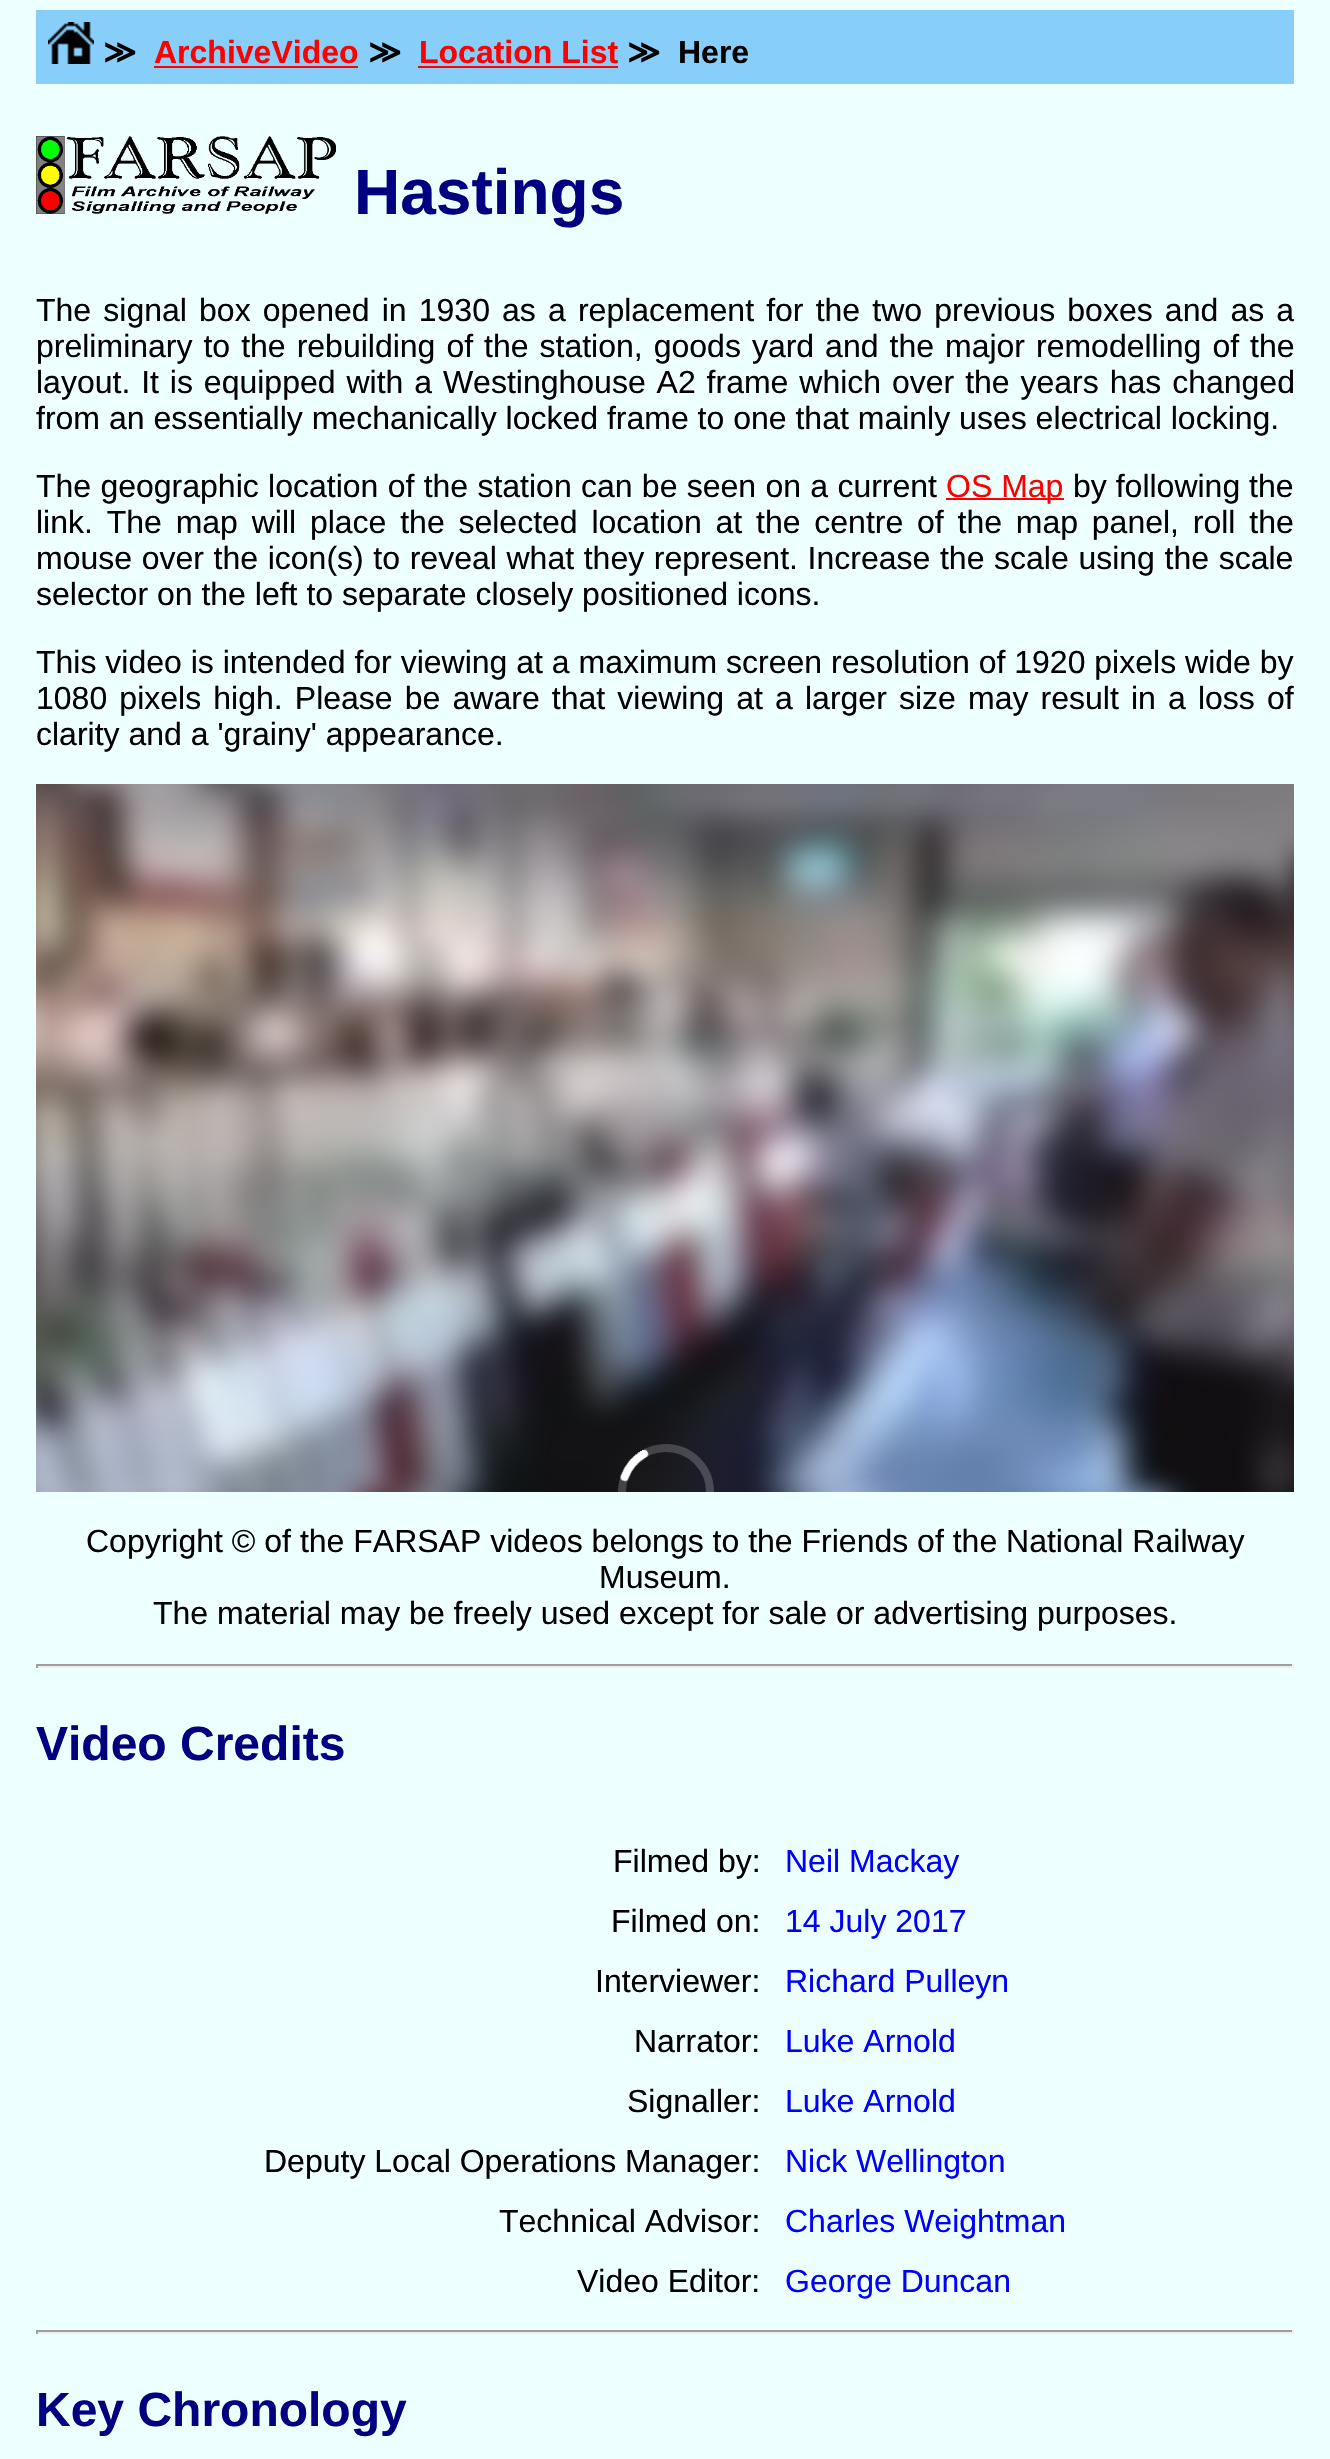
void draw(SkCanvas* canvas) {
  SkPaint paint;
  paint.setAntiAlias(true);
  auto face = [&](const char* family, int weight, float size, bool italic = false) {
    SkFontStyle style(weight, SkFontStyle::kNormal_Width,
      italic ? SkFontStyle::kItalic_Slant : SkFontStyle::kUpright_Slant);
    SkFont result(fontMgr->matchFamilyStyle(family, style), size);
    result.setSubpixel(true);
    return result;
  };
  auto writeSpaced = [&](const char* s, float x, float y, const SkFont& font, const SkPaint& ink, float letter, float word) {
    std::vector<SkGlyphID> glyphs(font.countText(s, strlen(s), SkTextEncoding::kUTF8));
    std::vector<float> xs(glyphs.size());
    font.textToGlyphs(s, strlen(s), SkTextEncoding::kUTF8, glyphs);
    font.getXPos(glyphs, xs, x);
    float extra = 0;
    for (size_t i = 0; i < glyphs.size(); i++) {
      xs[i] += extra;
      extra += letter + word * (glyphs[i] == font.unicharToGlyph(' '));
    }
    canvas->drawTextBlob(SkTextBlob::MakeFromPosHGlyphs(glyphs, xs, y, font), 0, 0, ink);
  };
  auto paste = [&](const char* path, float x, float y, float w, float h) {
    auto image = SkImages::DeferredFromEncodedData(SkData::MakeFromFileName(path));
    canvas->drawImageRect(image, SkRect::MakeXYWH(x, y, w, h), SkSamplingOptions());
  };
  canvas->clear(0xffeeffff);
  paint.setColor(0xff87cefa);
  canvas->drawRect(SkRect::MakeXYWH(36, 10, 1258, 74), paint);
  paste("img/1.png", 48, 22, 46, 42);
  paint.setColor(0xffff0000);
  canvas->drawRect(SkRect::MakeXYWH(154, 66, 204, 2), paint);
  canvas->drawRect(SkRect::MakeXYWH(418, 66, 200, 2), paint);
  paste("img/2.png", 36, 136, 300, 78);
  canvas->drawRect(SkRect::MakeXYWH(946, 498, 118, 2), paint);
  paste("img/3.png", 36, 784, 1258, 708);
  {
    const struct { float x, y, w, h; SkColor color; } items[] = {
      {36, 1664, 1258, 2, 0xff9f9f9f},
      {1292, 1664, 2, 4, 0xffeeeeee},
      {36, 1666, 1258, 2, 0xffeeeeee},
      {36, 1664, 2, 4, 0xff9f9f9f},
      {36, 2330, 1258, 2, 0xff9f9f9f},
      {1292, 2330, 2, 4, 0xffeeeeee},
      {36, 2332, 1258, 2, 0xffeeeeee},
      {36, 2330, 2, 4, 0xff9f9f9f},
    };
    for (auto [x, y, w, h, color] : items) {
      paint.setColor(color);
      canvas->drawRect(SkRect::MakeXYWH(x, y, w, h), paint);
    }
  }
  auto f0 = face("DejaVu Sans", 700, 32);
  paint.setColor(0xff000000);
  canvas->drawString("≫", 103, 63, f0, paint);
  auto f1 = face("Liberation Sans", 700, 32);
  paint.setColor(0xffff0000);
  canvas->drawString("ArchiveVideo", 154, 63, f1, paint);
  paint.setColor(0xff000000);
  canvas->drawString("≫", 368, 63, f0, paint);
  paint.setColor(0xffff0000);
  canvas->drawString("Location List", 419, 63, f1, paint);
  paint.setColor(0xff000000);
  canvas->drawString("≫", 627, 63, f0, paint);
  canvas->drawString("Here", 678, 63, f1, paint);
  auto f2 = face("Liberation Sans", 700, 64);
  paint.setColor(0xff000080);
  canvas->drawString("Hastings", 354, 214, f2, paint);
  auto f3 = face("Liberation Sans", 400, 32);
  paint.setColor(0xff000000);
  writeSpaced("The signal box opened in 1930 as a replacement for the two previous boxes and as a", 36, 321, f3, paint, 0, 3.25f);
  writeSpaced("preliminary to the rebuilding of the station, goods yard and the major remodelling of the", 36, 357, f3, paint, 0, 2.1f);
  writeSpaced("layout. It is equipped with a Westinghouse A2 frame which over the years has changed", 36, 393, f3, paint, 0, 2);
  canvas->drawString("from an essentially mechanically locked frame to one that mainly uses electrical locking.", 36, 429, f3, paint);
  writeSpaced("The geographic location of the station can be seen on a current", 36, 497, f3, paint, 0, 0.4f);
  paint.setColor(0xffff0000);
  canvas->drawString("OS Map", 946, 497, f3, paint);
  paint.setColor(0xff000000);
  canvas->drawString("by following the", 1073, 497, f3, paint);
  writeSpaced("link. The map will place the selected location at the centre of the map panel, roll the", 36, 533, f3, paint, 0, 4.9f);
  writeSpaced("mouse over the icon(s) to reveal what they represent. Increase the scale using the scale", 36, 569, f3, paint, 0, 0.75f);
  canvas->drawString("selector on the left to separate closely positioned icons.", 36, 605, f3, paint);
  canvas->drawString("This video is intended for viewing at a maximum screen resolution of 1920 pixels wide by", 36, 673, f3, paint);
  writeSpaced("1080 pixels high. Please be aware that viewing at a larger size may result in a loss of", 36, 709, f3, paint, 0, 3.25f);
  {
    const struct { const char* s; float x, y; } items[] = {
      {"clarity and a 'grainy' appearance.", 36, 745},
      {"Copyright © of the FARSAP videos belongs to the Friends of the National Railway", 86, 1552},
      {"Museum.", 599, 1588},
      {"The material may be freely used except for sale or advertising purposes.", 153, 1624},
    };
    for (auto [s, x, y] : items) {
      canvas->drawString(s, x, y, f3, paint);
    }
  }
  auto f4 = face("Liberation Sans", 700, 48);
  paint.setColor(0xff000080);
  canvas->drawString("Video Credits", 36, 1760, f4, paint);
  paint.setColor(0xff000000);
  canvas->drawString("Filmed by:", 613, 1872, f3, paint);
  paint.setColor(0xff0000ff);
  canvas->drawString("Neil Mackay", 785, 1872, f3, paint);
  paint.setColor(0xff000000);
  canvas->drawString("Filmed on:", 611, 1932, f3, paint);
  paint.setColor(0xff0000ff);
  canvas->drawString("14 July 2017", 785, 1932, f3, paint);
  paint.setColor(0xff000000);
  canvas->drawString("Interviewer:", 595, 1992, f3, paint);
  paint.setColor(0xff0000ff);
  canvas->drawString("Richard Pulleyn", 785, 1992, f3, paint);
  paint.setColor(0xff000000);
  canvas->drawString("Narrator:", 634, 2052, f3, paint);
  paint.setColor(0xff0000ff);
  canvas->drawString("Luke Arnold", 785, 2052, f3, paint);
  paint.setColor(0xff000000);
  canvas->drawString("Signaller:", 627, 2112, f3, paint);
  paint.setColor(0xff0000ff);
  canvas->drawString("Luke Arnold", 785, 2112, f3, paint);
  paint.setColor(0xff000000);
  canvas->drawString("Deputy Local Operations Manager:", 264, 2172, f3, paint);
  paint.setColor(0xff0000ff);
  canvas->drawString("Nick Wellington", 785, 2172, f3, paint);
  paint.setColor(0xff000000);
  canvas->drawString("Technical Advisor:", 499, 2232, f3, paint);
  paint.setColor(0xff0000ff);
  canvas->drawString("Charles Weightman", 785, 2232, f3, paint);
  paint.setColor(0xff000000);
  canvas->drawString("Video Editor:", 577, 2292, f3, paint);
  paint.setColor(0xff0000ff);
  canvas->drawString("George Duncan", 785, 2292, f3, paint);
  paint.setColor(0xff000080);
  canvas->drawString("Key Chronology", 36, 2426, f4, paint);
}
